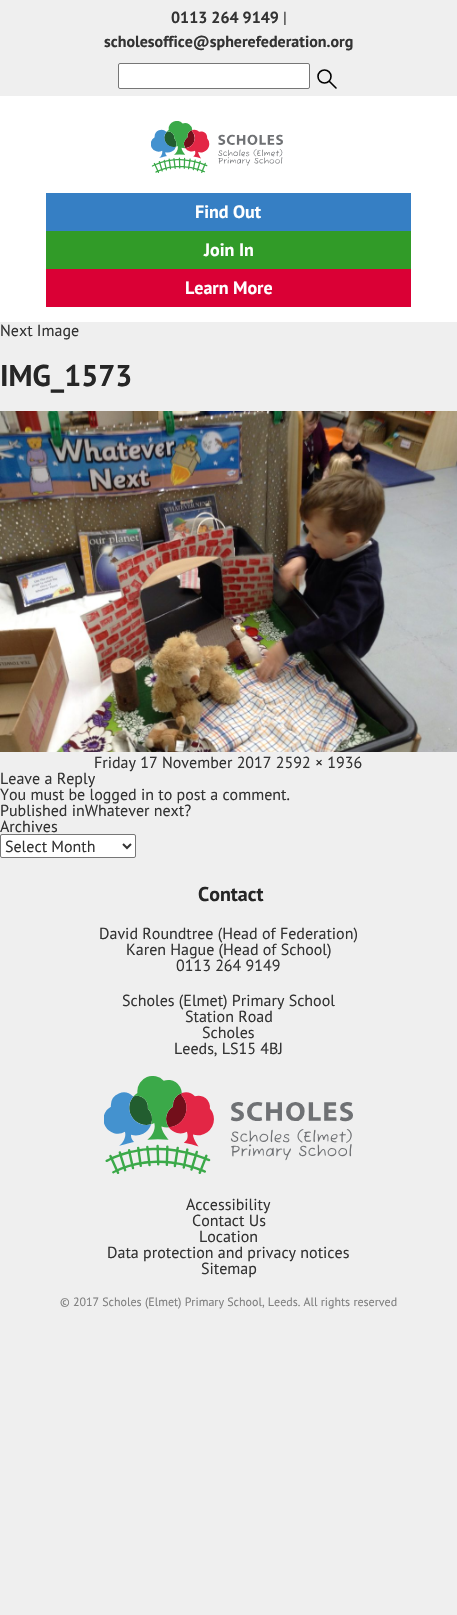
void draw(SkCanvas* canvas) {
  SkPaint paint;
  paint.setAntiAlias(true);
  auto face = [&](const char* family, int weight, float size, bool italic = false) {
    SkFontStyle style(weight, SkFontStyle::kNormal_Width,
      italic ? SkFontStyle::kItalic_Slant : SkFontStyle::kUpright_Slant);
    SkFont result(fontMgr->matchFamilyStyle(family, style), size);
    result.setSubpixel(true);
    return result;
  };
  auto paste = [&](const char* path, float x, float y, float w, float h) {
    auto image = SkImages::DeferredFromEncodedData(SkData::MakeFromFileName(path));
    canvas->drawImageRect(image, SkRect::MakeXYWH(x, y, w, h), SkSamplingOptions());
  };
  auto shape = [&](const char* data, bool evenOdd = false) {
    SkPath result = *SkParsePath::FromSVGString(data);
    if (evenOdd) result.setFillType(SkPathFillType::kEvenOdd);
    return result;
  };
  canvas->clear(0xffefefef);
  paint.setColor(0xffffffff);
  canvas->drawRoundRect(SkRect::MakeXYWH(118.5f, 63.5f, 191, 25), 1.5f, 1.5f, paint);
  paint.setStroke(true);
  paint.setStrokeWidth(1);
  paint.setColor(0xff767676);
  canvas->drawRoundRect(SkRect::MakeXYWH(118.5f, 63.5f, 191, 25), 1.5f, 1.5f, paint);
  paint.setStrokeWidth(1.6f);
  paint.setStrokeCap(SkPaint::kRound_Cap);
  paint.setStrokeJoin(SkPaint::kRound_Join);
  paint.setColor(0xff000000);
  canvas->drawPath(shape("M329.5 81.5L336 88"), paint);
  paint.setStrokeCap(SkPaint::kButt_Cap);
  paint.setStrokeJoin(SkPaint::kMiter_Join);
  canvas->drawCircle(324.5f, 76.5f, 6.5f, paint);
  paint.setStroke(false);
  paint.setColor(0xffffffff);
  canvas->drawRect(SkRect::MakeXYWH(0, 96, 457, 226), paint);
  paste("img/1.png", 151, 121, 132, 52);
  {
    const struct { float x, y, w, h; SkColor color; } items[] = {
      {46, 193, 365, 38, 0xff367fc4},
      {46, 231, 365, 38, 0xff319b28},
      {46, 269, 365, 38, 0xffda0035},
    };
    for (auto [x, y, w, h, color] : items) {
      paint.setColor(color);
      canvas->drawRect(SkRect::MakeXYWH(x, y, w, h), paint);
    }
  }
  paste("img/2.png", 0, 411, 457, 341);
  paint.setColor(0xffffffff);
  canvas->drawRoundRect(SkRect::MakeXYWH(0.5f, 834.5f, 135, 23), 1.5f, 1.5f, paint);
  paint.setStroke(true);
  paint.setStrokeWidth(1);
  paint.setColor(0xff767676);
  canvas->drawRoundRect(SkRect::MakeXYWH(0.5f, 834.5f, 135, 23), 1.5f, 1.5f, paint);
  paint.setStrokeWidth(2);
  paint.setColor(0xff333333);
  canvas->drawPath(shape("M123 844L127 848L131 844"), paint);
  paste("img/3.png", 104, 1076, 249, 98);
  auto f0 = face("PT Sans", 700, 16);
  paint.setStroke(false);
  canvas->drawString("0113 264 9149", 171, 23, f0, paint);
  auto f1 = face("PT Sans", 400, 16);
  canvas->drawString("|", 283, 23, f1, paint);
  canvas->drawString("scholesoffice@spherefederation.org", 104, 47, f0, paint);
  auto f2 = face("PT Sans", 700, 18);
  paint.setColor(0xffffffff);
  {
    const struct { const char* s; float x, y; } items[] = {
      {"Find Out", 195, 218},
      {"Join In", 204, 256},
      {"Learn More", 185, 294},
    };
    for (auto [s, x, y] : items) {
      canvas->drawString(s, x, y, f2, paint);
    }
  }
  paint.setColor(0xff333333);
  canvas->drawString("Next Image", 0, 336, f1, paint);
  auto f3 = face("PT Sans", 700, 30);
  paint.setColor(0xff262626);
  canvas->drawString("IMG_1573", 0, 386, f3, paint);
  paint.setColor(0xff333333);
  {
    const struct { const char* s; float x, y; } items[] = {
      {"Friday 17 November 2017 2592 × 1936", 94, 768},
      {"Leave a Reply", 0, 784},
      {"You must be logged in to post a comment.", 0, 800},
      {"Published inWhatever next?", 0, 816},
      {"Archives", 0, 832},
      {"Select Month", 5, 852},
    };
    for (auto [s, x, y] : items) {
      canvas->drawString(s, x, y, f1, paint);
    }
  }
  auto f4 = face("PT Sans", 700, 20);
  paint.setColor(0xff262626);
  canvas->drawString("Contact", 198, 901, f4, paint);
  paint.setColor(0xff333333);
  {
    const struct { const char* s; float x, y; } items[] = {
      {"David Roundtree (Head of Federation)", 99, 939},
      {"Karen Hague (Head of School)", 126, 955},
      {"0113 264 9149", 176, 971},
      {"Scholes (Elmet) Primary School", 122, 1006},
      {"Station Road", 185, 1022},
      {"Scholes", 202, 1038},
      {"Leeds, LS15 4BJ", 174, 1054},
      {"Accessibility", 186, 1210},
      {"Contact Us", 192, 1226},
      {"Location", 199, 1242},
      {"Data protection and privacy notices", 107, 1258},
      {"Sitemap", 201, 1274},
    };
    for (auto [s, x, y] : items) {
      canvas->drawString(s, x, y, f1, paint);
    }
  }
  auto f5 = face("PT Sans", 400, 12);
  paint.setColor(0xff808080);
  canvas->drawString("© 2017 Scholes (Elmet) Primary School, Leeds. All rights reserved", 60, 1306, f5, paint);
}
